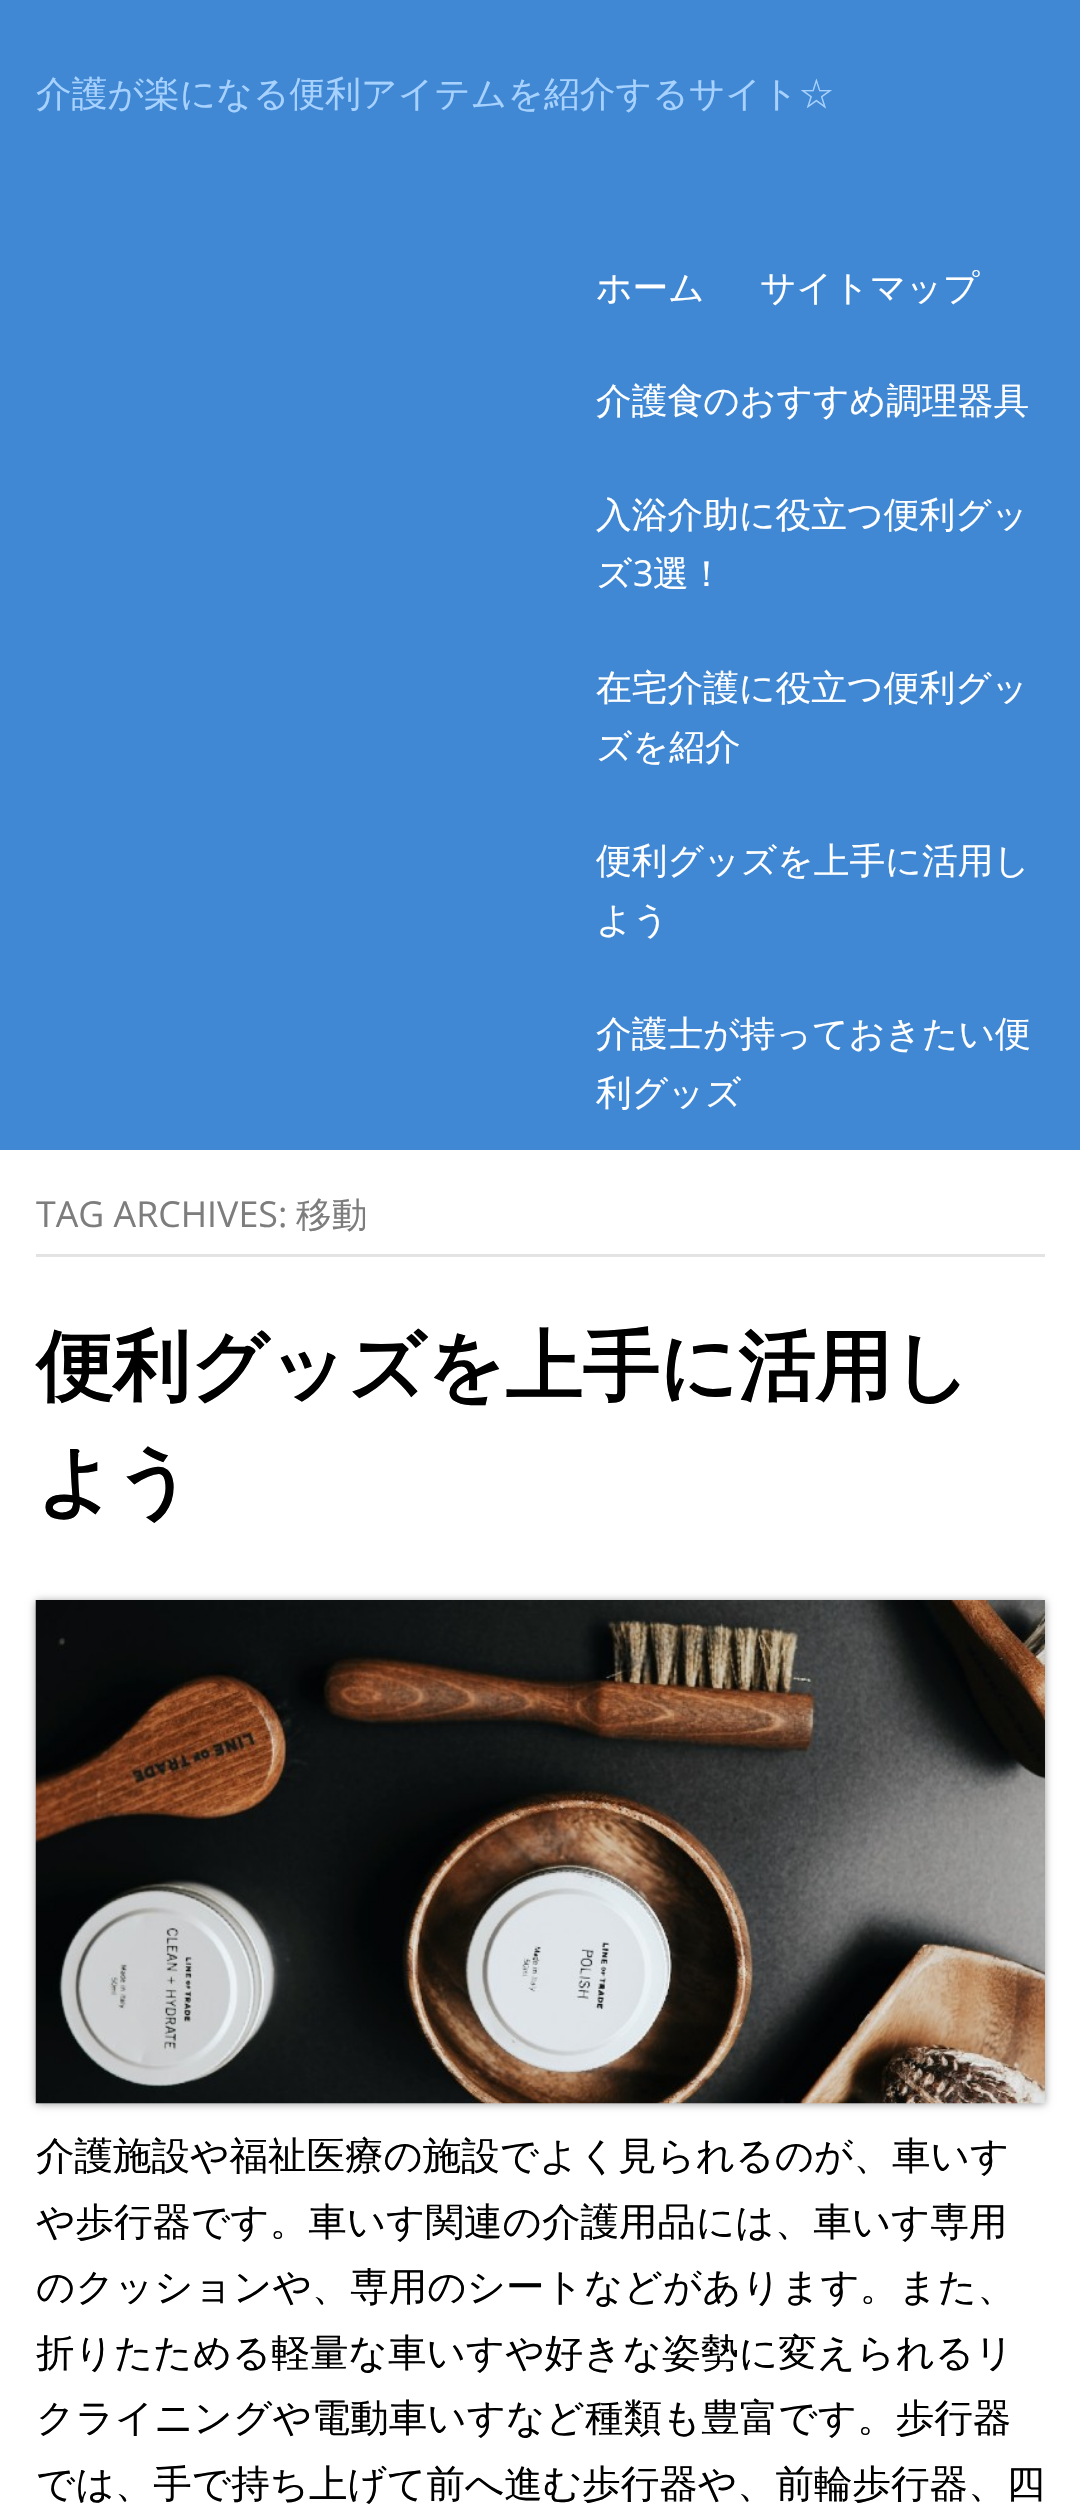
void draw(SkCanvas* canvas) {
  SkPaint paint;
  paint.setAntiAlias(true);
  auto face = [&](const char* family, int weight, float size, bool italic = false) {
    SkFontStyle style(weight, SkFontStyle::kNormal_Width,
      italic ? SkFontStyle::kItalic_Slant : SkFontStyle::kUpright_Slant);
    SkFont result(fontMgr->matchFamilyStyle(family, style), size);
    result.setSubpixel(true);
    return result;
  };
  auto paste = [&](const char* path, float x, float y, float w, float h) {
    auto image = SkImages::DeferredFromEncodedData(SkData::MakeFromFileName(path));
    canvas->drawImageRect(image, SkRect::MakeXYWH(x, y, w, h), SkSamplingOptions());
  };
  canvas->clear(0xff4188d4);
  paint.setColor(0xffffffff);
  canvas->drawRect(SkRect::MakeXYWH(0, 1150, 1080, 1357), paint);
  paint.setColor(0xffe3e3e3);
  canvas->drawRect(SkRect::MakeXYWH(36, 1254, 1009, 3), paint);
  paint.setColor(0x66000000);
  paint.setMaskFilter(SkMaskFilter::MakeBlur(kNormal_SkBlurStyle, 4));
  canvas->drawRect(SkRect::MakeXYWH(36, 1601, 1009, 503), paint);
  paint.setMaskFilter(nullptr);
  paste("img/1.png", 35, 1600, 1010, 504);
  auto f0 = face("WenQuanYi Zen Hei", 500, 35.75f);
  paint.setColor(0xffa7d2ff);
  canvas->drawString("介護が楽になる便利アイテムを紹介するサイト☆", 36, 106, f0, paint);
  paint.setColor(0xffffffff);
  {
    const struct { const char* s; float x, y; } items[] = {
      {"ホーム", 596, 300},
      {"サイトマップ", 760, 300},
      {"介護食のおすすめ調理器具", 596, 413},
      {"入浴介助に役立つ便利グッ", 596, 527},
      {"ズ", 596, 586},
    };
    for (auto [s, x, y] : items) {
      canvas->drawString(s, x, y, f0, paint);
    }
  }
  auto f1 = face("Open Sans", 400, 35.75f);
  canvas->drawString("3", 633, 586, f1, paint);
  {
    const struct { const char* s; float x, y; } items[] = {
      {"選！", 653, 586},
      {"在宅介護に役立つ便利グッ", 596, 700},
      {"ズを紹介", 596, 759},
      {"便利グッズを上手に活用し", 596, 873},
      {"よう", 596, 932},
      {"介護士が持っておきたい便", 596, 1046},
      {"利グッズ", 596, 1105},
    };
    for (auto [s, x, y] : items) {
      canvas->drawString(s, x, y, f0, paint);
    }
  }
  paint.setColor(0xff7d7d7d);
  canvas->drawString("TAG ARCHIVES:", 36, 1227, f1, paint);
  canvas->drawString("移動", 296, 1227, f0, paint);
  auto f2 = face("WenQuanYi Zen Hei", 700, 77);
  paint.setColor(0xff000000);
  canvas->drawString("便利グッズを上手に活用し", 36, 1393, f2, paint);
  canvas->drawString("よう", 36, 1508, f2, paint);
  auto f3 = face("WenQuanYi Zen Hei", 500, 38.5f);
  {
    const struct { const char* s; float x, y; } items[] = {
      {"介護施設や福祉医療の施設でよく見られるのが、車いす", 36, 2169},
      {"や歩行器です。車いす関連の介護用品には、車いす専用", 36, 2235},
      {"のクッションや、専用のシートなどがあります。また、", 36, 2300},
      {"折りたためる軽量な車いすや好きな姿勢に変えられるリ", 36, 2366},
      {"クライニングや電動車いすなど種類も豊富です。歩行器", 36, 2431},
      {"では、手で持ち上げて前へ進む歩行器や、前輪歩行器、四", 36, 2497},
    };
    for (auto [s, x, y] : items) {
      canvas->drawString(s, x, y, f3, paint);
    }
  }
}
